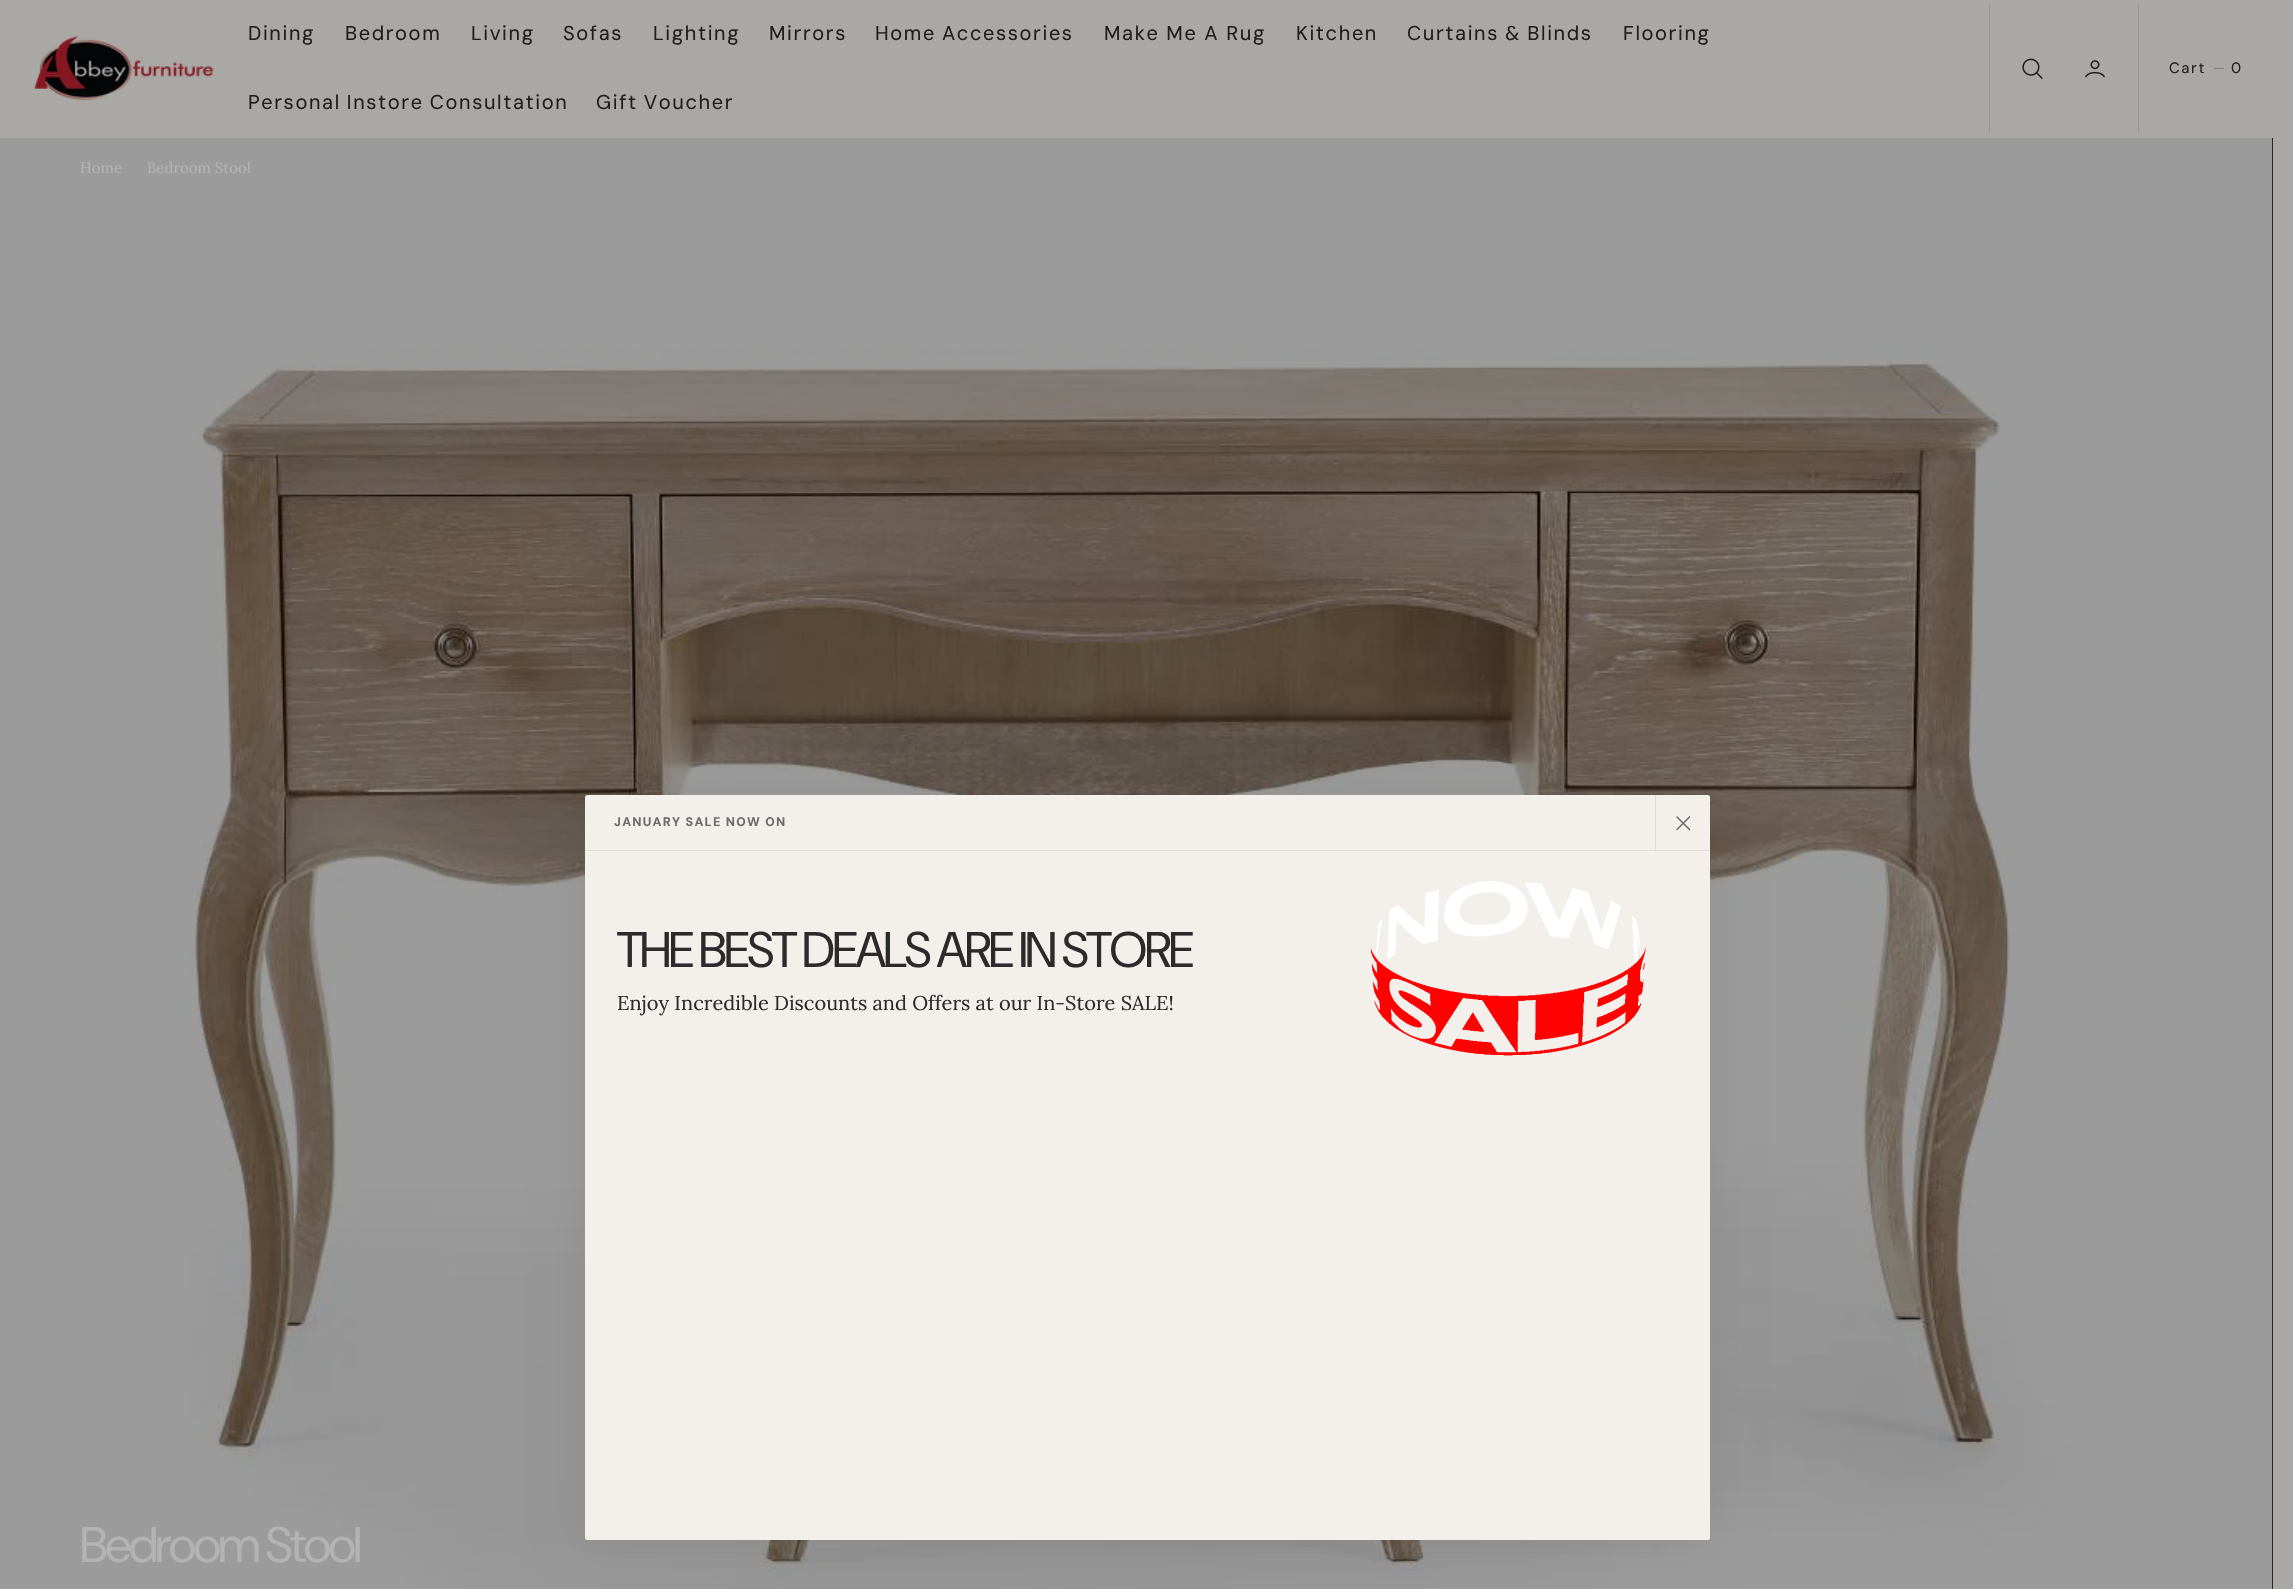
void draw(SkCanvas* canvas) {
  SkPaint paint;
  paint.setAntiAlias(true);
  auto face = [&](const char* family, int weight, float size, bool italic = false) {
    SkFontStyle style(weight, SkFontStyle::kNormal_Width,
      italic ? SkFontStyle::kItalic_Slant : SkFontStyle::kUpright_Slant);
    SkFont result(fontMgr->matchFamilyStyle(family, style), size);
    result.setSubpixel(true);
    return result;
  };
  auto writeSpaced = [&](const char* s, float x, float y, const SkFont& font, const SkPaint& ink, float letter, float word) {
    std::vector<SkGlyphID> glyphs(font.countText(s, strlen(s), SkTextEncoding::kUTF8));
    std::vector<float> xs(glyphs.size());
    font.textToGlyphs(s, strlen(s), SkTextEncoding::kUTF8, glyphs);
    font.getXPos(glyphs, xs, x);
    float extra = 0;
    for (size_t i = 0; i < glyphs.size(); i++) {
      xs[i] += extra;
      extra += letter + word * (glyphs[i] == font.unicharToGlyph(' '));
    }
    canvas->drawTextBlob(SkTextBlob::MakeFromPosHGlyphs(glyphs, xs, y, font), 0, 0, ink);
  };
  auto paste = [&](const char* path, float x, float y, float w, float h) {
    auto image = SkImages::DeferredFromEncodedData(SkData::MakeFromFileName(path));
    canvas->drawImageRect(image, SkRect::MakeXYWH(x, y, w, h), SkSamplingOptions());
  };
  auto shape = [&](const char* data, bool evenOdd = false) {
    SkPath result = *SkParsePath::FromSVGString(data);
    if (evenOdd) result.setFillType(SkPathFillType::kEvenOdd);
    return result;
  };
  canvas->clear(0xffaaa8a5);
  paste("img/1.png", 33, 36, 181, 65);
  paint.setColor(0xff9e9b95);
  canvas->drawRect(SkRect::MakeXYWH(1989, 3, 1, 131), paint);
  paste("img/2.png", 2022, 58, 21, 21);
  paste("img/3.png", 2085, 60, 20, 18);
  {
    const struct { float x, y, w, h; SkColor color; } items[] = {
      {2138, 3, 1, 131, 0xff9e9b95},
      {2214, 68, 10, 1, 0xff807f7d},
      {2272, 138, 1, 1451, 0xff000000},
    };
    for (auto [x, y, w, h, color] : items) {
      paint.setColor(color);
      canvas->drawRect(SkRect::MakeXYWH(x, y, w, h), paint);
    }
  }
  paste("img/4.png", 0, 138, 2273, 1451);
  paint.setColor(0x12000000);
  paint.setMaskFilter(SkMaskFilter::MakeBlur(kNormal_SkBlurStyle, 25));
  canvas->drawRoundRect(SkRect::MakeXYWH(585, 795, 1125, 745), 2.5f, 2.5f, paint);
  paint.setMaskFilter(nullptr);
  paint.setColor(0xfff3f0ec);
  canvas->drawRoundRect(SkRect::MakeXYWH(585, 795, 1125, 745), 2.5f, 2.5f, paint);
  paint.setColor(0xffe2ddd5);
  canvas->drawRect(SkRect::MakeXYWH(585, 850, 1125, 1), paint);
  canvas->drawRect(SkRect::MakeXYWH(1655, 795, 1, 55), paint);
  paint.setStroke(true);
  paint.setStrokeWidth(1.5f);
  paint.setStrokeCap(SkPaint::kRound_Cap);
  paint.setStrokeJoin(SkPaint::kRound_Join);
  paint.setColor(0xff6b6b6b);
  canvas->drawPath(shape("M1689.5 817L1677 829.5M1689.5 829.5L1677 817"), paint);
  paste("img/5.png", 1370, 881, 276, 175);
  auto f0 = face("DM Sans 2", 400, 20);
  paint.setStroke(false);
  paint.setColor(0xff1e1e1e);
  {
    const struct { const char* s; float x, y; } items[] = {
      {"Dining", 248, 40},
      {"Bedroom", 345, 40},
      {"Living", 471, 40},
      {"Sofas", 563, 40},
      {"Lighting", 653, 40},
      {"Mirrors", 769, 40},
    };
    for (auto [s, x, y] : items) {
      writeSpaced(s, x, y, f0, paint, 1.6f, 0);
    }
  }
  writeSpaced("Home Accessories", 875, 40, f0, paint, 1.6f, -1);
  writeSpaced("Make Me A Rug", 1104, 40, f0, paint, 1.6f, 0);
  writeSpaced("Kitchen", 1296, 40, f0, paint, 1.6f, 0);
  writeSpaced("Curtains & Blinds", 1407, 40, f0, paint, 1.6f, -1);
  writeSpaced("Flooring", 1623, 40, f0, paint, 1.6f, 0);
  writeSpaced("Personal Instore Consultation", 248, 109, f0, paint, 1.6f, -1);
  writeSpaced("Gift Voucher", 596, 109, f0, paint, 1.6f, -1);
  auto f1 = face("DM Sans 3", 400, 15);
  writeSpaced("Cart", 2169, 73, f1, paint, 1.6f, 0);
  writeSpaced("0", 2231, 73, f1, paint, 1.6f, 0);
  auto f2 = face("Lora", 400, 15);
  paint.setColor(0xffb3b3b3);
  canvas->drawString("Home", 80, 173, f2, paint);
  canvas->drawString("Bedroom Stool", 147, 173, f2, paint);
  auto f3 = face("DM Sans", 400, 50);
  writeSpaced("Bedroom Stool", 80, 1562, f3, paint, -2.5f, 0);
  auto f4 = face("DM Sans", 700, 12.5f);
  paint.setColor(0xff6b6b6b);
  writeSpaced("JANUARY SALE NOW ON", 614, 826, f4, paint, 1.25f, 0);
  paint.setColor(0xff2b2b2b);
  writeSpaced("THE BEST DEALS ARE IN STORE", 617, 967, f3, paint, -2.5f, 0);
  auto f5 = face("Lora", 400, 20);
  canvas->drawString("Enjoy Incredible Discounts and Offers at our In-Store SALE!", 617, 1010, f5, paint);
}
